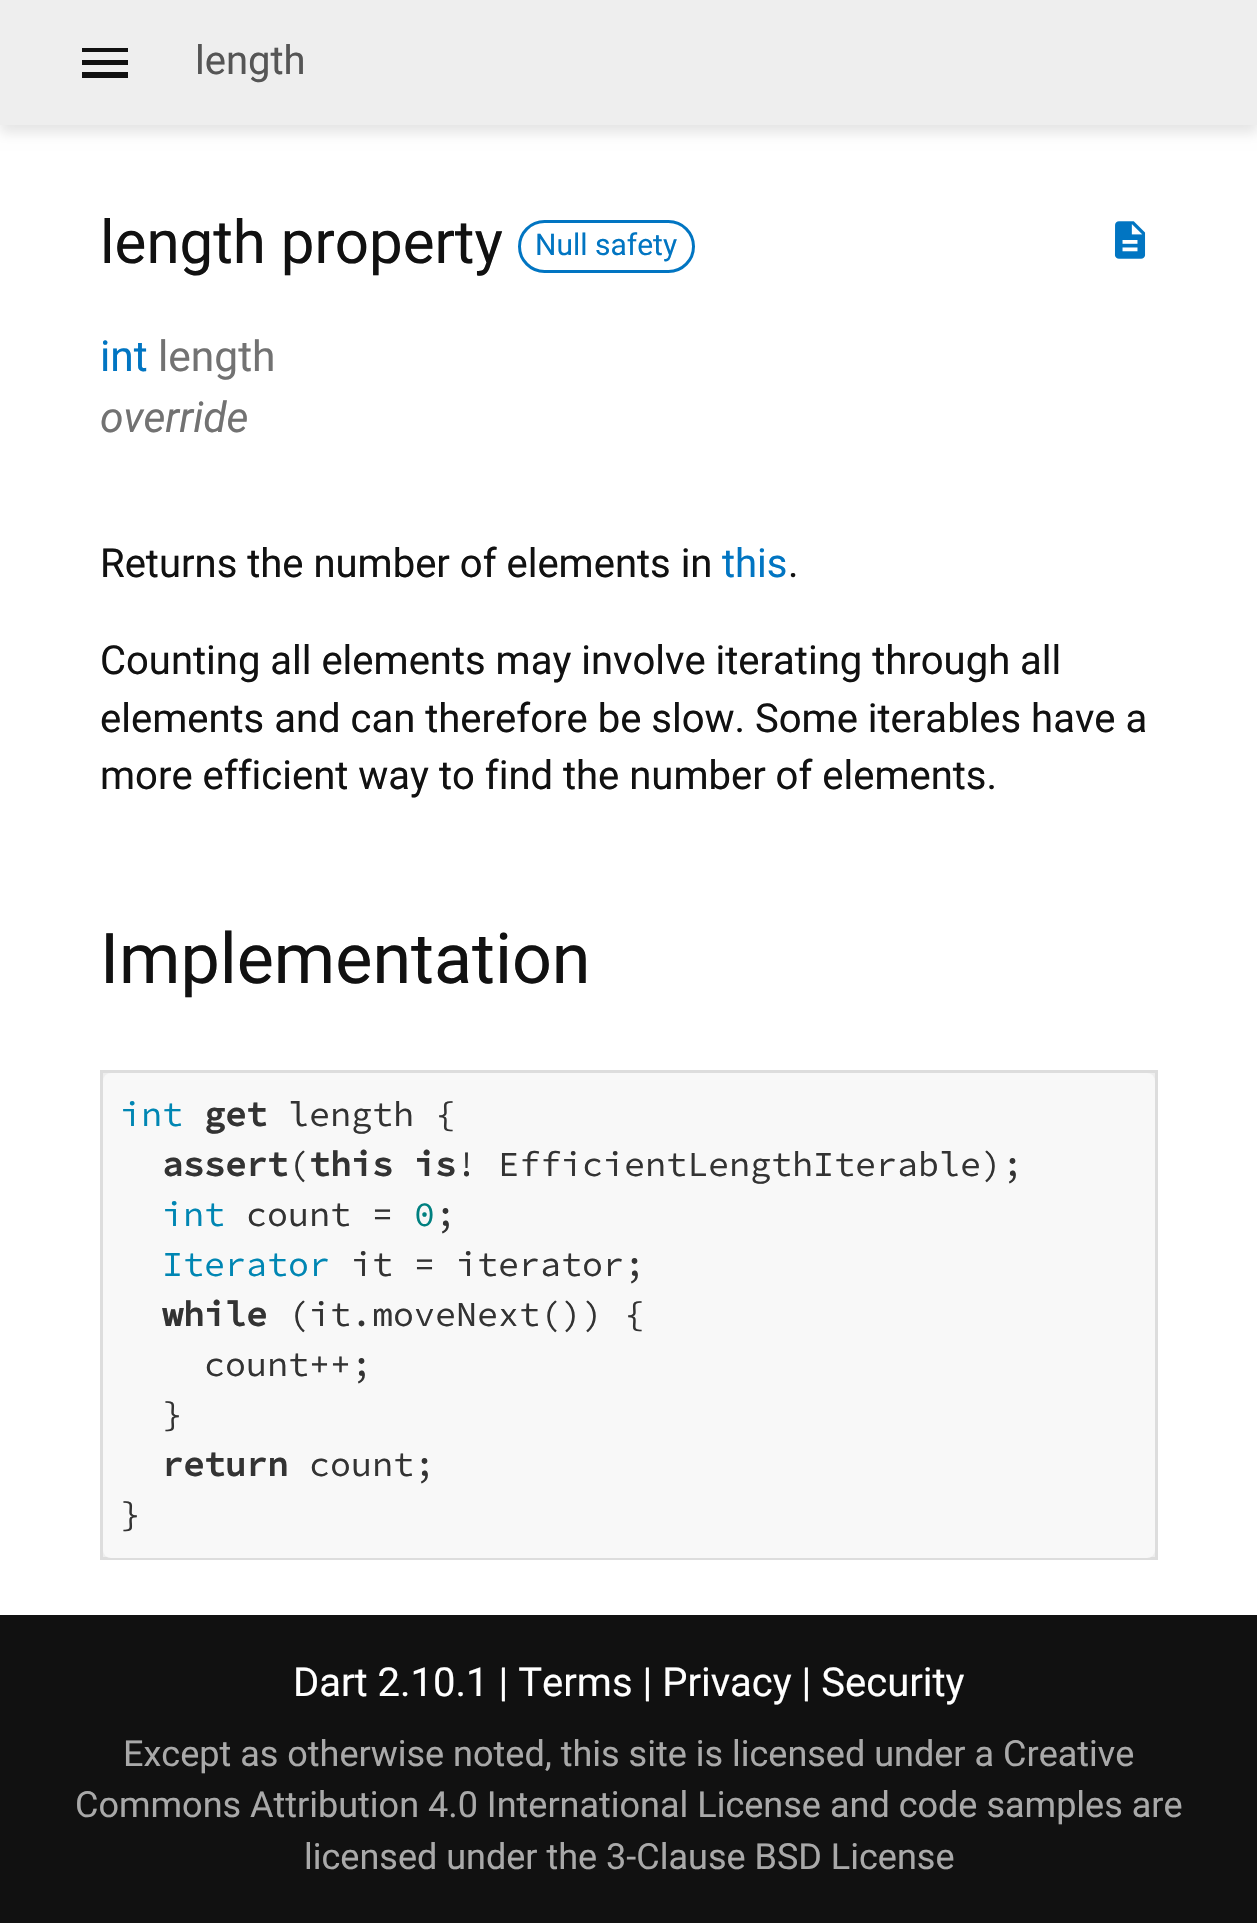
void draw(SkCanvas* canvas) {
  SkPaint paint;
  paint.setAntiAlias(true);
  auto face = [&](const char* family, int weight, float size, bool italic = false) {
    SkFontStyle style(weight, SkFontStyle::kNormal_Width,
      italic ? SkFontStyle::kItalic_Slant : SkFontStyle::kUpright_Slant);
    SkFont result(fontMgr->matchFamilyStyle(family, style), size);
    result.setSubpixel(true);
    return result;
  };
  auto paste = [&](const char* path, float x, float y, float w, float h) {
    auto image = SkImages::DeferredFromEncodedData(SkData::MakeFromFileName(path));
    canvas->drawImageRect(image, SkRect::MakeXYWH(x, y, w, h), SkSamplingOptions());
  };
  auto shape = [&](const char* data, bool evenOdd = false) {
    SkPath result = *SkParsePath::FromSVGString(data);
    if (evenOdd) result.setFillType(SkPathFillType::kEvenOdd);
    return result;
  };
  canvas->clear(0xffffffff);
  paint.setColor(0x1a000000);
  paint.setMaskFilter(SkMaskFilter::MakeBlur(kNormal_SkBlurStyle, 6));
  canvas->drawRect(SkRect::MakeXYWH(0, 8, 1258, 125), paint);
  paint.setMaskFilter(nullptr);
  paint.setColor(0xffeeeeee);
  canvas->drawRect(SkRect::MakeXYWH(0, 0, 1257, 125), paint);
  paint.setColor(0xff111111);
  canvas->drawPath(shape("M82 78H128V72H82ZM82 65H128V60H82ZM82 48V52H128V48Z"), paint);
  paint.setStroke(true);
  paint.setStrokeWidth(3);
  paint.setColor(0xff0175c2);
  canvas->drawRoundRect(SkRect::MakeXYWH(519.5f, 221.5f, 174, 50), 25, 25, paint);
  paste("img/1.png", 1114, 221, 32, 38);
  paint.setStroke(false);
  paint.setColor(0xffeeeeee);
  canvas->drawRect(SkRect::MakeXYWH(101.5f, 1071.5f, 1055, 487), paint);
  paint.setStroke(true);
  paint.setColor(0xffdddddd);
  canvas->drawRect(SkRect::MakeXYWH(101.5f, 1071.5f, 1055, 487), paint);
  paint.setStroke(false);
  paint.setColor(0xfff8f8f8);
  canvas->drawRoundRect(SkRect::MakeXYWH(103, 1073, 1052, 485), 8, 8, paint);
  paint.setColor(0xff111111);
  canvas->drawRect(SkRect::MakeXYWH(0, 1615, 1257, 308), paint);
  auto f0 = face("Roboto", 400, 40);
  paint.setColor(0xff555555);
  canvas->drawString("length", 195, 74, f0, paint);
  auto f1 = face("Roboto", 400, 60);
  paint.setColor(0xff111111);
  canvas->drawString("length property", 100, 263, f1, paint);
  auto f2 = face("Roboto", 400, 30);
  paint.setColor(0xff0175c2);
  canvas->drawString("Null safety", 535, 255, f2, paint);
  auto f3 = face("Roboto", 400, 42.5f);
  canvas->drawString("int", 100, 371, f3, paint);
  paint.setColor(0xff727272);
  canvas->drawString("length", 158, 371, f3, paint);
  auto f4 = face("Roboto", 400, 42.5f, true);
  canvas->drawString("override", 100, 432, f4, paint);
  paint.setColor(0xff111111);
  canvas->drawString("Returns the number of elements in", 100, 577, f0, paint);
  paint.setColor(0xff0175c2);
  canvas->drawString("this", 722, 577, f0, paint);
  paint.setColor(0xff111111);
  {
    const struct { const char* s; float x, y; } items[] = {
      {".", 788, 577},
      {"Counting all elements may involve iterating through all", 100, 674},
      {"elements and can therefore be slow. Some iterables have a", 100, 732},
      {"more efficient way to find the number of elements.", 100, 789},
    };
    for (auto [s, x, y] : items) {
      canvas->drawString(s, x, y, f0, paint);
    }
  }
  auto f5 = face("Roboto", 400, 70);
  canvas->drawString("Implementation", 100, 983, f5, paint);
  auto f6 = face("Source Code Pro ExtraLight", 400, 35);
  paint.setColor(0xff0086b3);
  canvas->drawString("int", 120, 1126, f6, paint);
  auto f7 = face("Source Code Pro ExtraLight", 700, 35);
  paint.setColor(0xff333333);
  canvas->drawString("get", 204, 1126, f7, paint);
  canvas->drawString("length {", 288, 1126, f6, paint);
  canvas->drawString("assert this is", 162, 1176, f7, paint);
  canvas->drawString("(", 288, 1176, f6, paint);
  canvas->drawString("! EfficientLengthIterable);", 456, 1176, f6, paint);
  paint.setColor(0xff0086b3);
  canvas->drawString("int", 162, 1226, f6, paint);
  paint.setColor(0xff333333);
  canvas->drawString("count =", 246, 1226, f6, paint);
  paint.setColor(0xff008080);
  canvas->drawString("0", 414, 1226, f6, paint);
  paint.setColor(0xff333333);
  canvas->drawString(";", 435, 1226, f6, paint);
  paint.setColor(0xff0086b3);
  canvas->drawString("Iterator", 162, 1276, f6, paint);
  paint.setColor(0xff333333);
  canvas->drawString("it = iterator;", 351, 1276, f6, paint);
  canvas->drawString("while", 162, 1326, f7, paint);
  {
    const struct { const char* s; float x, y; } items[] = {
      {"(it.moveNext()) {", 288, 1326},
      {"count++;", 204, 1376},
      {"}", 162, 1426},
    };
    for (auto [s, x, y] : items) {
      canvas->drawString(s, x, y, f6, paint);
    }
  }
  canvas->drawString("return", 162, 1476, f7, paint);
  canvas->drawString("count;", 309, 1476, f6, paint);
  canvas->drawString("}", 120, 1526, f6, paint);
  paint.setColor(0xffffffff);
  canvas->drawString("Dart 2.10.1 | Terms | Privacy | Security", 293, 1696, f0, paint);
  auto f8 = face("Roboto", 400, 36);
  paint.setColor(0xffa9a9a9);
  {
    const struct { const char* s; float x, y; } items[] = {
      {"Except as otherwise noted, this site is licensed under a", 123, 1766},
      {"Creative", 1003, 1766},
      {"Commons Attribution 4.0 International License", 75, 1817},
      {"and code samples are", 830, 1817},
      {"licensed under the 3-Clause BSD License", 304, 1869},
    };
    for (auto [s, x, y] : items) {
      canvas->drawString(s, x, y, f8, paint);
    }
  }
}
